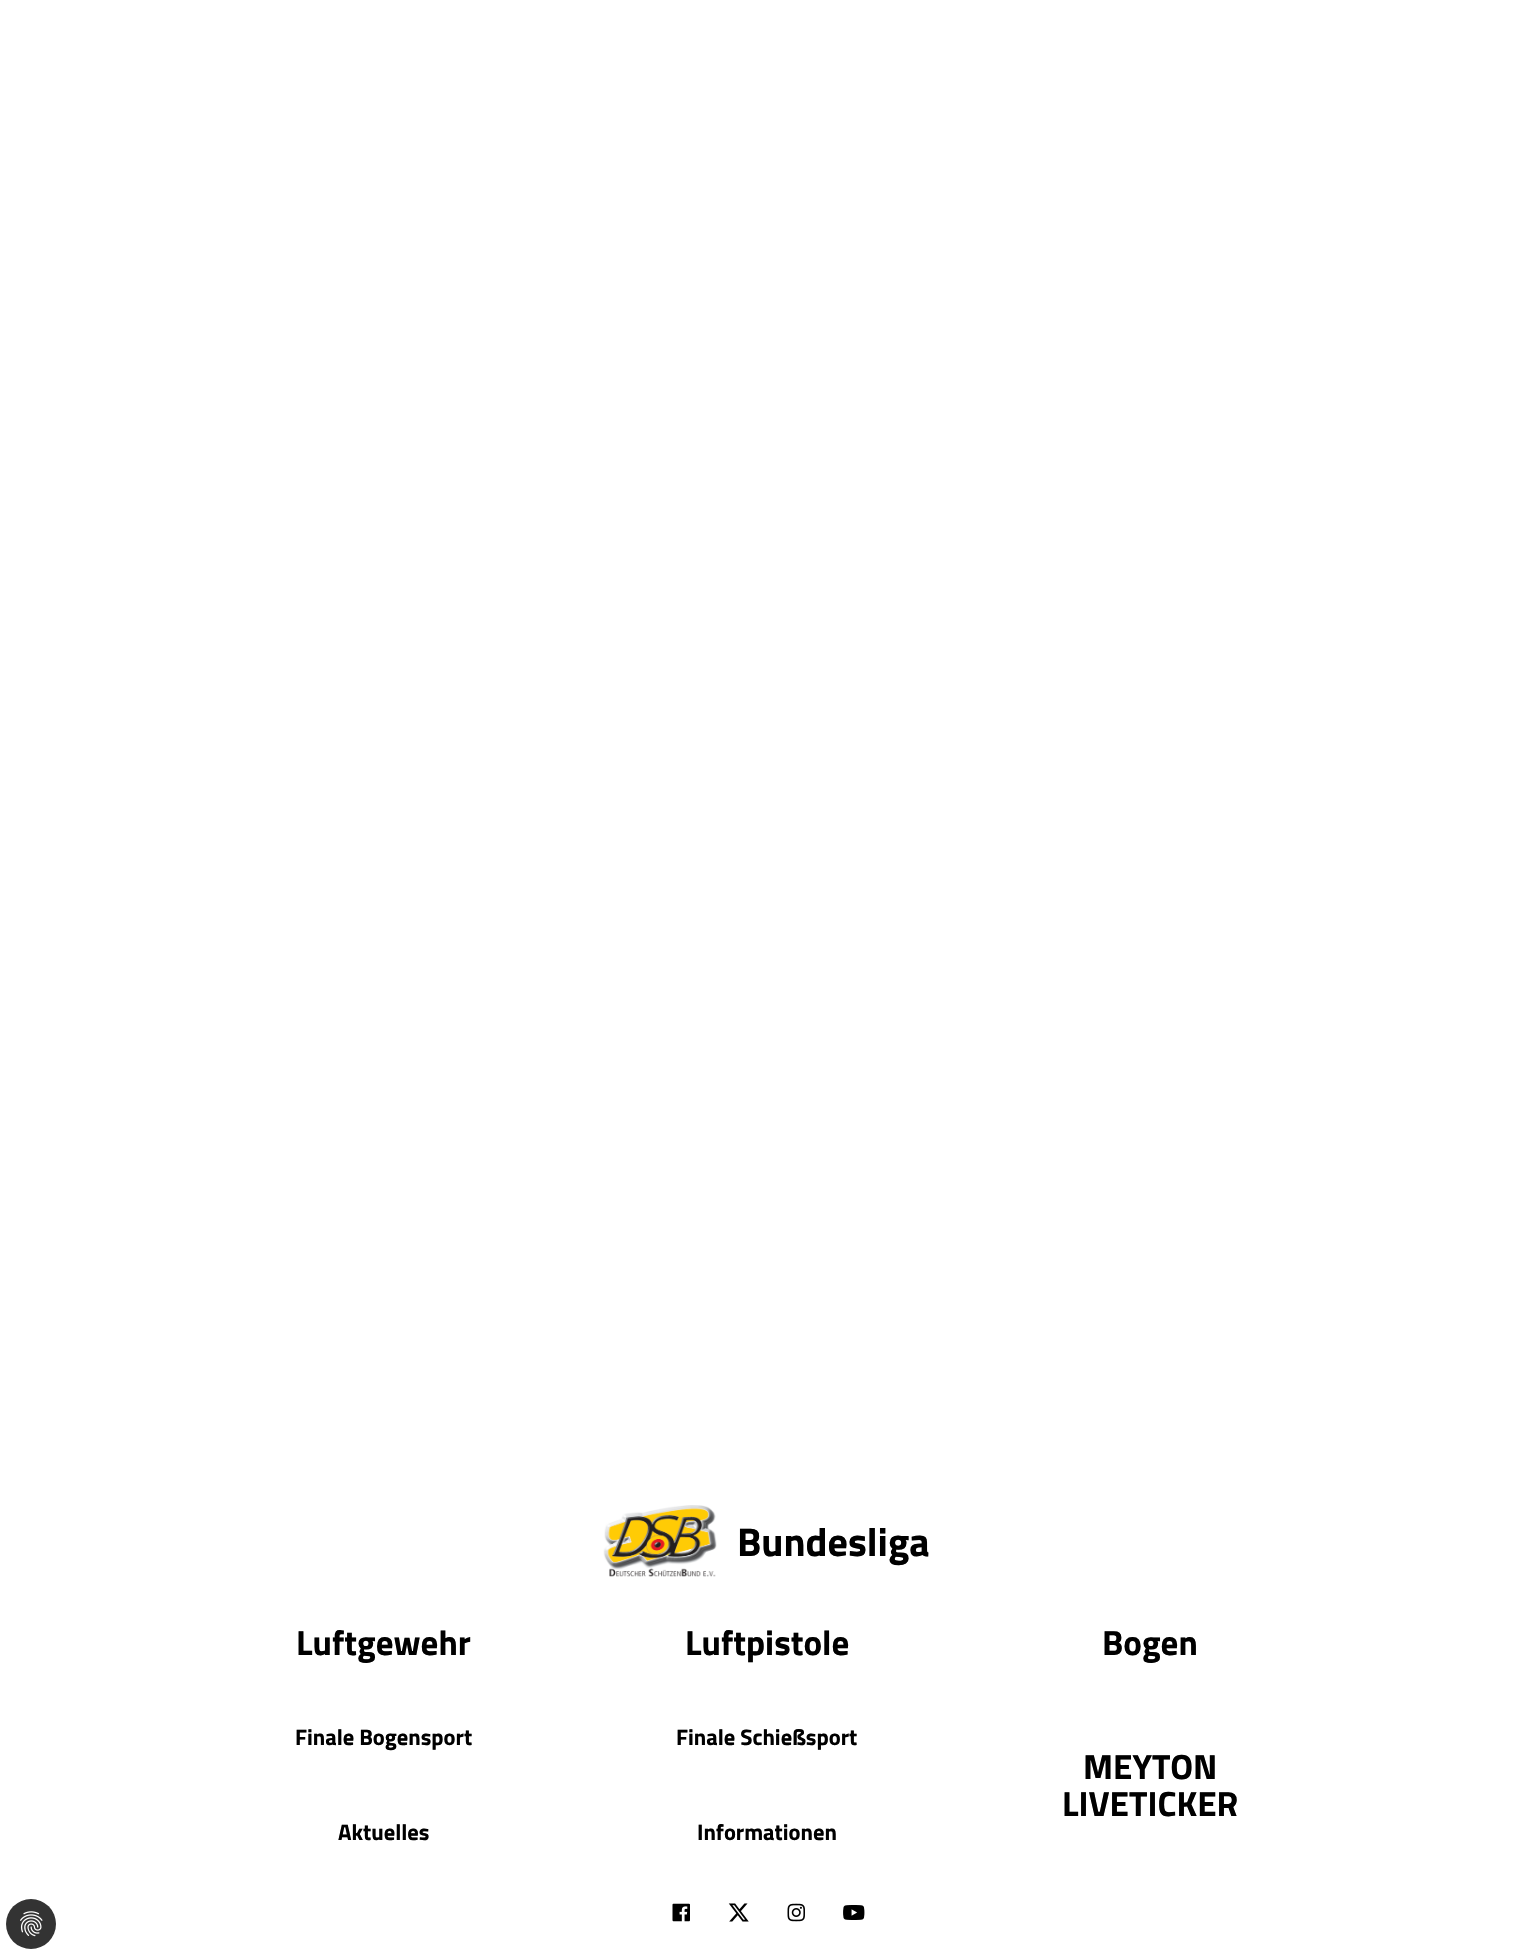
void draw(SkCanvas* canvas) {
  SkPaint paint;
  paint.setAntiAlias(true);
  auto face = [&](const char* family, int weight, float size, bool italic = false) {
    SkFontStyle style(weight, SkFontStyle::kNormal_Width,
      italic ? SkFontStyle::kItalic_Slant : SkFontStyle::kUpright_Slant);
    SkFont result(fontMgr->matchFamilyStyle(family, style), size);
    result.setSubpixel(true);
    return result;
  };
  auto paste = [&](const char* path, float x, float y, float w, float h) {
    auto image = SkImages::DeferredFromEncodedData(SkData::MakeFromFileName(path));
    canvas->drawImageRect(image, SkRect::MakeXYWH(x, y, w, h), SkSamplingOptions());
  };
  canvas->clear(0xffffffff);
  paste("img/1.png", 603, 1505, 114, 72);
  paste("img/2.png", 672, 1903, 18, 19);
  paste("img/3.png", 728, 1903, 21, 19);
  paste("img/4.png", 787, 1903, 18, 19);
  paste("img/5.png", 843, 1905, 22, 15);
  paint.setColor(0xff333333);
  canvas->drawCircle(31, 1924, 25, paint);
  paste("img/6.png", 20, 1911, 23, 26);
  auto f0 = face("Titillium Web", 700, 40);
  paint.setColor(0xff000000);
  canvas->drawString("Bundesliga", 737, 1556, f0, paint);
  auto f1 = face("Titillium Web", 700, 35);
  {
    const struct { const char* s; float x, y; } items[] = {
      {"Luftgewehr", 296, 1655},
      {"Luftpistole", 685, 1655},
      {"Bogen", 1102, 1655},
    };
    for (auto [s, x, y] : items) {
      canvas->drawString(s, x, y, f1, paint);
    }
  }
  auto f2 = face("Titillium Web", 700, 22.5f);
  {
    const struct { const char* s; float x, y; } items[] = {
      {"Finale Bogensport", 295, 1745},
      {"Finale Schießsport", 676, 1745},
      {"Aktuelles", 338, 1840},
      {"Informationen", 697, 1840},
    };
    for (auto [s, x, y] : items) {
      canvas->drawString(s, x, y, f2, paint);
    }
  }
  canvas->drawString("MEYTON", 1083, 1779, f1, paint);
  canvas->drawString("LIVETICKER", 1062, 1816, f1, paint);
}
